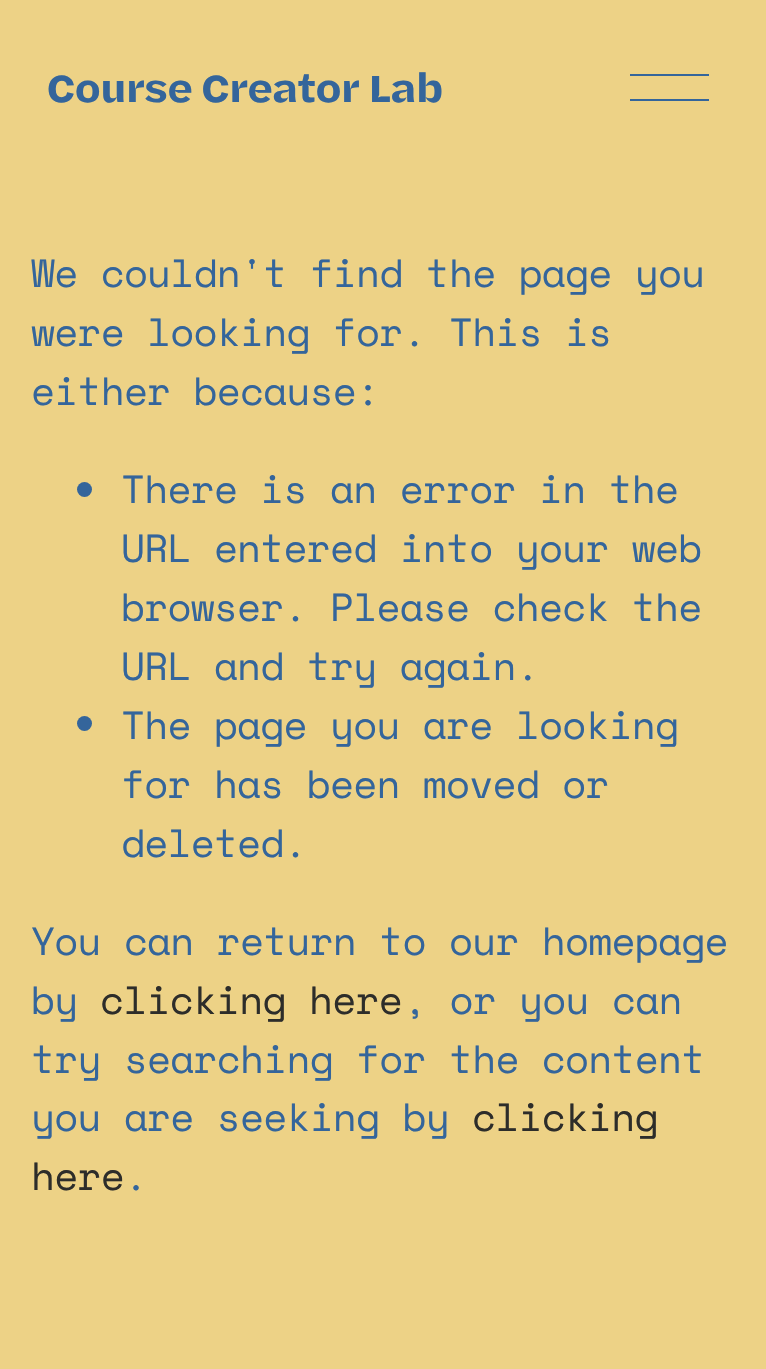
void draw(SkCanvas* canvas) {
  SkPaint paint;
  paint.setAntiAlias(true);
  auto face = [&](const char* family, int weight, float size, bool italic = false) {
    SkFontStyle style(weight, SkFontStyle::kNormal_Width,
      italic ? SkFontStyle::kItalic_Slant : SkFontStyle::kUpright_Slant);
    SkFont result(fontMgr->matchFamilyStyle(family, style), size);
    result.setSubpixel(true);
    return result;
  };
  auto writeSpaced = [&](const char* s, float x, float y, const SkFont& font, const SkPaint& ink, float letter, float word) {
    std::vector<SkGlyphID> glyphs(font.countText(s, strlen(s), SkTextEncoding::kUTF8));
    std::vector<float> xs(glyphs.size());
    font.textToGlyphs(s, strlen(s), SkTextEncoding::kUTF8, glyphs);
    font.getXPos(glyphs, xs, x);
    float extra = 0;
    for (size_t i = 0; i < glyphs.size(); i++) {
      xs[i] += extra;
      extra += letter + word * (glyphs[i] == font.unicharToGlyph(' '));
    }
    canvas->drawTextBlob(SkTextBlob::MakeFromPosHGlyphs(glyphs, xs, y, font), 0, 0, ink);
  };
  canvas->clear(0xffedd286);
  paint.setColor(0xff34659b);
  canvas->drawRect(SkRect::MakeXYWH(630, 74, 79, 2), paint);
  canvas->drawRect(SkRect::MakeXYWH(630, 99, 79, 2), paint);
  canvas->drawCircle(84.5f, 489.5f, 7.5f, paint);
  canvas->drawCircle(84.5f, 723.5f, 7.5f, paint);
  auto f0 = face("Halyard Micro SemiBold", 600, 39.25f);
  writeSpaced("Course Creator Lab", 46, 102, f0, paint, -2, 0);
  auto f1 = face("Space Mono", 400, 39.25f);
  {
    const struct { const char* s; float x, y; } items[] = {
      {"We couldn't find the page you", 31, 287},
      {"were looking for. This is", 31, 346},
      {"either because:", 31, 405},
      {"There is an error in the", 121, 503},
      {"URL entered into your web", 121, 562},
      {"browser. Please check the", 121, 621},
      {"URL and try again.", 121, 680},
      {"The page you are looking", 121, 739},
      {"for has been moved or", 121, 798},
      {"deleted.", 121, 857},
      {"You can return to our homepage", 31, 955},
      {"by", 31, 1014},
    };
    for (auto [s, x, y] : items) {
      writeSpaced(s, x, y, f1, paint, -0.8f, 0);
    }
  }
  paint.setColor(0xff2d2d2a);
  writeSpaced("clicking here", 100, 1014, f1, paint, -0.8f, 0);
  paint.setColor(0xff34659b);
  {
    const struct { const char* s; float x, y; } items[] = {
      {", or you can", 403, 1014},
      {"try searching for the content", 31, 1073},
      {"you are seeking by", 31, 1131},
    };
    for (auto [s, x, y] : items) {
      writeSpaced(s, x, y, f1, paint, -0.8f, 0);
    }
  }
  paint.setColor(0xff2d2d2a);
  writeSpaced("clicking", 472, 1131, f1, paint, -0.8f, 0);
  writeSpaced("here", 31, 1190, f1, paint, -0.8f, 0);
  paint.setColor(0xff34659b);
  writeSpaced(".", 124, 1190, f1, paint, -0.8f, 0);
}
